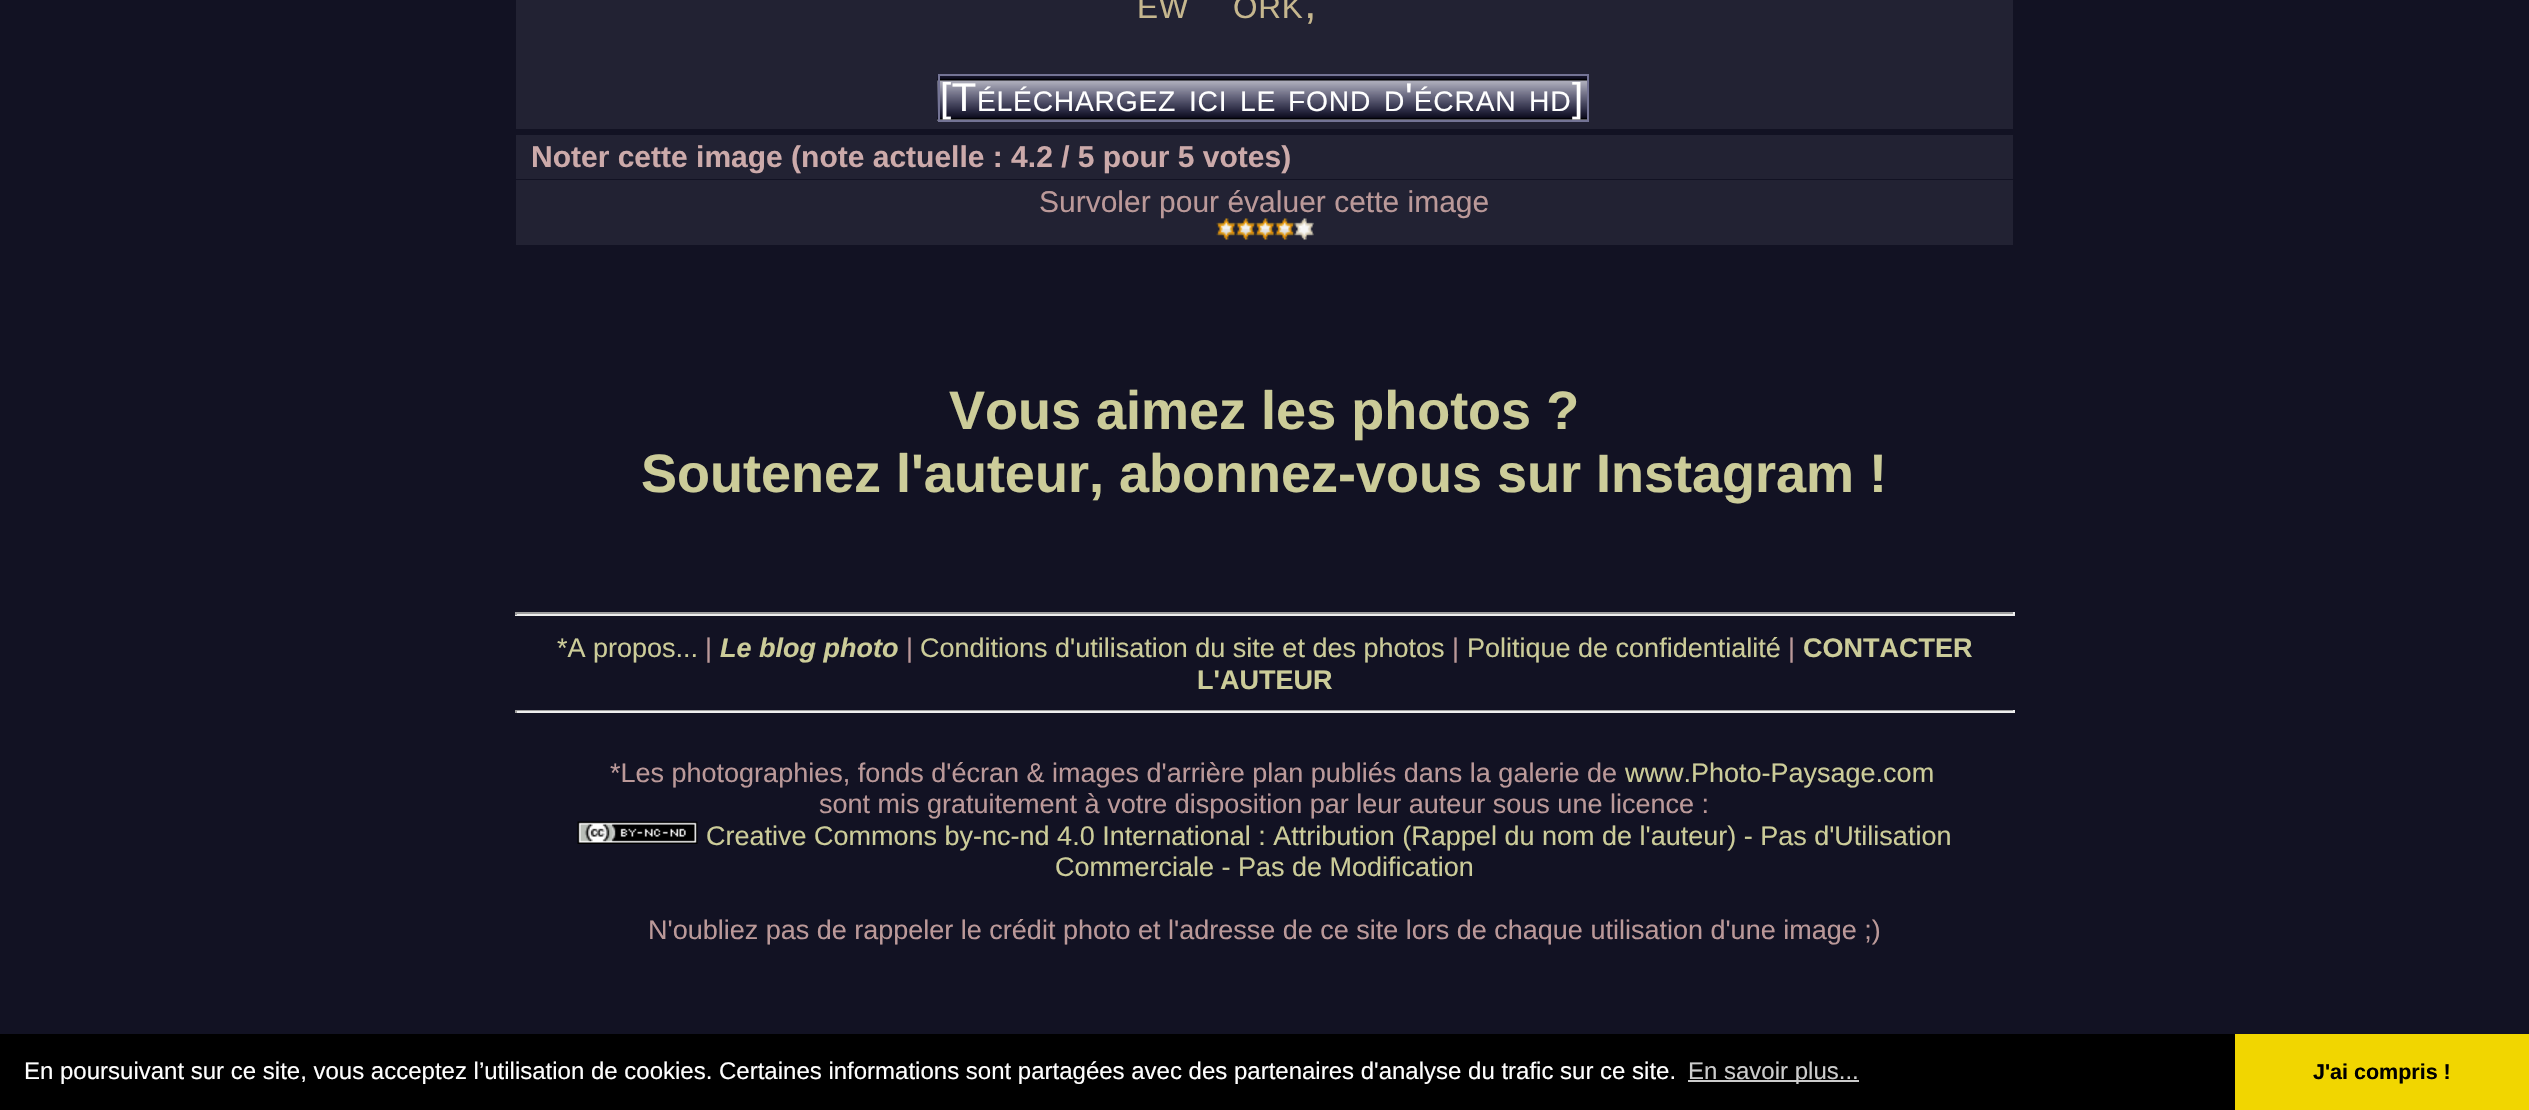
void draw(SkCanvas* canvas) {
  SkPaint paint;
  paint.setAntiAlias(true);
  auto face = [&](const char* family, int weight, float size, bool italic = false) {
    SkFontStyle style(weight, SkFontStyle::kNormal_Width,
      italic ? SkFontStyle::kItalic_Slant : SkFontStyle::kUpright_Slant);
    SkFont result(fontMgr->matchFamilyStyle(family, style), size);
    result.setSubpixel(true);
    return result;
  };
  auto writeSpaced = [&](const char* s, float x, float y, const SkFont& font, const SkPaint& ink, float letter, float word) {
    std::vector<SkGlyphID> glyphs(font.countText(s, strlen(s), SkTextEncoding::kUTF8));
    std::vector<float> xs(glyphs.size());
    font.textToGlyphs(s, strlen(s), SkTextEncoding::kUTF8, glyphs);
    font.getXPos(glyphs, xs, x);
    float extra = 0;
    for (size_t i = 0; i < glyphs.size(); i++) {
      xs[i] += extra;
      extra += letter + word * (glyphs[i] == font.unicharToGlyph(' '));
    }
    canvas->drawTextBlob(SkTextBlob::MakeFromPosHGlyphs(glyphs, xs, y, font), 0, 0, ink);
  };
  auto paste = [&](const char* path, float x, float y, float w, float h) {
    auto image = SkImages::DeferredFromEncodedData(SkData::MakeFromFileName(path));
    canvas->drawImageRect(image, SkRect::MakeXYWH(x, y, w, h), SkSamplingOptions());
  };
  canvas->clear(0xff121223);
  paint.setColor(0xff222233);
  canvas->drawRect(SkRect::MakeXYWH(516, 0, 1497, 129), paint);
  paste("img/1.png", 937, 74, 650, 47);
  paint.setStroke(true);
  paint.setStrokeWidth(2);
  paint.setColor(0xff747495);
  canvas->drawRect(SkRect::MakeXYWH(939, 75, 649, 46), paint);
  paint.setStroke(false);
  {
    const struct { float x, y, w, h; SkColor color; } items[] = {
      {516, 135, 1497, 44, 0xff222233},
      {516, 180, 1497, 65, 0xff222233},
      {515, 612, 1500, 2, 0xff9f9f9f},
      {2013, 612, 2, 3, 0xffeeeeee},
      {515, 614, 1500, 2, 0xffeeeeee},
      {515, 612, 2, 3, 0xff9f9f9f},
      {515, 710, 1500, 1, 0xff9f9f9f},
      {2013, 710, 2, 3, 0xffeeeeee},
      {515, 711, 1500, 2, 0xffeeeeee},
      {515, 710, 2, 3, 0xff9f9f9f},
    };
    for (auto [x, y, w, h, color] : items) {
      paint.setColor(color);
      canvas->drawRect(SkRect::MakeXYWH(x, y, w, h), paint);
    }
  }
  paste("img/7.png", 577, 821, 121, 23);
  {
    const struct { float x, y, w, h; SkColor color; } items[] = {
      {0, 1034, 2235, 76, 0xff000000},
      {1688, 1080, 171, 2, 0xffcccccc},
      {2235, 1034, 294, 76, 0xfff1d600},
    };
    for (auto [x, y, w, h, color] : items) {
      paint.setColor(color);
      canvas->drawRect(SkRect::MakeXYWH(x, y, w, h), paint);
    }
  }
  auto f0 = face("Liberation Sans", 400, 31.5f);
  paint.setColor(0xffc6b78e);
  writeSpaced("EW", 1137, 18, f0, paint, 0.75f, 0);
  writeSpaced("ORK", 1233, 18, f0, paint, 0.75f, 0);
  auto f1 = face("Liberation Sans", 400, 45);
  writeSpaced(",", 1304, 18, f1, paint, 0.75f, 0);
  auto f2 = face("Liberation Sans", 400, 40);
  paint.setColor(0xffffffff);
  writeSpaced("[T", 940, 111, f2, paint, 0.75f, 0);
  auto f3 = face("Liberation Sans", 400, 28.25f);
  writeSpaced("ÉLÉCHARGEZ", 977, 111, f3, paint, 0.75f, 0);
  writeSpaced("]", 1572, 111, f2, paint, 0.75f, 0);
  {
    const struct { const char* s; float x, y; } items[] = {
      {"ICI", 1189, 111},
      {"LE", 1240, 111},
      {"FOND", 1288, 111},
      {"D ÉCRAN", 1384, 111},
    };
    for (auto [s, x, y] : items) {
      writeSpaced(s, x, y, f3, paint, 0.75f, 0);
    }
  }
  writeSpaced("'", 1405, 111, f2, paint, 0.75f, 0);
  writeSpaced("HD", 1529, 111, f3, paint, 0.75f, 0);
  auto f4 = face("Liberation Sans", 700, 30);
  paint.setColor(0xffccaaaa);
  canvas->drawString("Noter cette image (note actuelle : 4.2 / 5 pour 5 votes)", 531, 167, f4, paint);
  auto f5 = face("Liberation Sans", 400, 30);
  paint.setColor(0xffbb9999);
  canvas->drawString("Survoler pour évaluer cette image", 1039, 212, f5, paint);
  paste("img/2.png", 1216, 218, 20, 22);
  paste("img/3.png", 1236, 218, 20, 22);
  paste("img/4.png", 1255, 218, 20, 22);
  paste("img/5.png", 1275, 218, 20, 22);
  paste("img/6.png", 1294, 218, 20, 22);
  auto f6 = face("Liberation Sans", 700, 54);
  paint.setColor(0xffcccc99);
  canvas->drawString("Vous aimez les photos ?", 949, 429, f6, paint);
  canvas->drawString("Soutenez l'auteur, abonnez-vous sur Instagram !", 641, 492, f6, paint);
  auto f7 = face("Liberation Sans", 400, 27);
  canvas->drawString("*A propos...", 557, 657, f7, paint);
  paint.setColor(0xffbb9999);
  canvas->drawString("|", 705, 657, f7, paint);
  auto f8 = face("Liberation Sans", 700, 27, true);
  paint.setColor(0xffcccc99);
  canvas->drawString("Le blog photo", 720, 657, f8, paint);
  paint.setColor(0xffbb9999);
  canvas->drawString("|", 906, 657, f7, paint);
  paint.setColor(0xffcccc99);
  canvas->drawString("Conditions d'utilisation du site et des photos", 920, 657, f7, paint);
  paint.setColor(0xffbb9999);
  canvas->drawString("|", 1452, 657, f7, paint);
  paint.setColor(0xffcccc99);
  canvas->drawString("Politique de confidentialité", 1467, 657, f7, paint);
  paint.setColor(0xffbb9999);
  canvas->drawString("|", 1788, 657, f7, paint);
  auto f9 = face("Liberation Sans", 700, 27);
  paint.setColor(0xffcccc99);
  canvas->drawString("CONTACTER", 1803, 657, f9, paint);
  canvas->drawString("L'AUTEUR", 1197, 689, f9, paint);
  paint.setColor(0xffbb9999);
  canvas->drawString("*Les photographies, fonds d'écran & images d'arrière plan publiés dans la galerie de", 610, 782, f7, paint);
  paint.setColor(0xffcccc99);
  canvas->drawString("www.Photo-Paysage.com", 1625, 782, f7, paint);
  paint.setColor(0xffbb9999);
  canvas->drawString("sont mis gratuitement à votre disposition par leur auteur sous une licence :", 819, 813, f7, paint);
  paint.setColor(0xffcccc99);
  canvas->drawString("Creative Commons by-nc-nd 4.0 International : Attribution (Rappel du nom de l'auteur) - Pas d'Utilisation", 706, 845, f7, paint);
  canvas->drawString("Commerciale - Pas de Modification", 1055, 876, f7, paint);
  paint.setColor(0xffbb9999);
  canvas->drawString("N'oubliez pas de rappeler le crédit photo et l'adresse de ce site lors de chaque utilisation d'une image ;)", 648, 939, f7, paint);
  auto f10 = face("Liberation Sans", 400, 24);
  paint.setColor(0xffffffff);
  canvas->drawString("En poursuivant sur ce site, vous acceptez l’utilisation de cookies. Certaines informations sont partagées avec des partenaires d'analyse du trafic sur ce site.", 24, 1079, f10, paint);
  paint.setColor(0xffcccccc);
  canvas->drawString("En savoir plus...", 1688, 1079, f10, paint);
  auto f11 = face("Liberation Sans", 700, 21.5f);
  paint.setColor(0xff000000);
  canvas->drawString("J'ai compris !", 2313, 1079, f11, paint);
}
